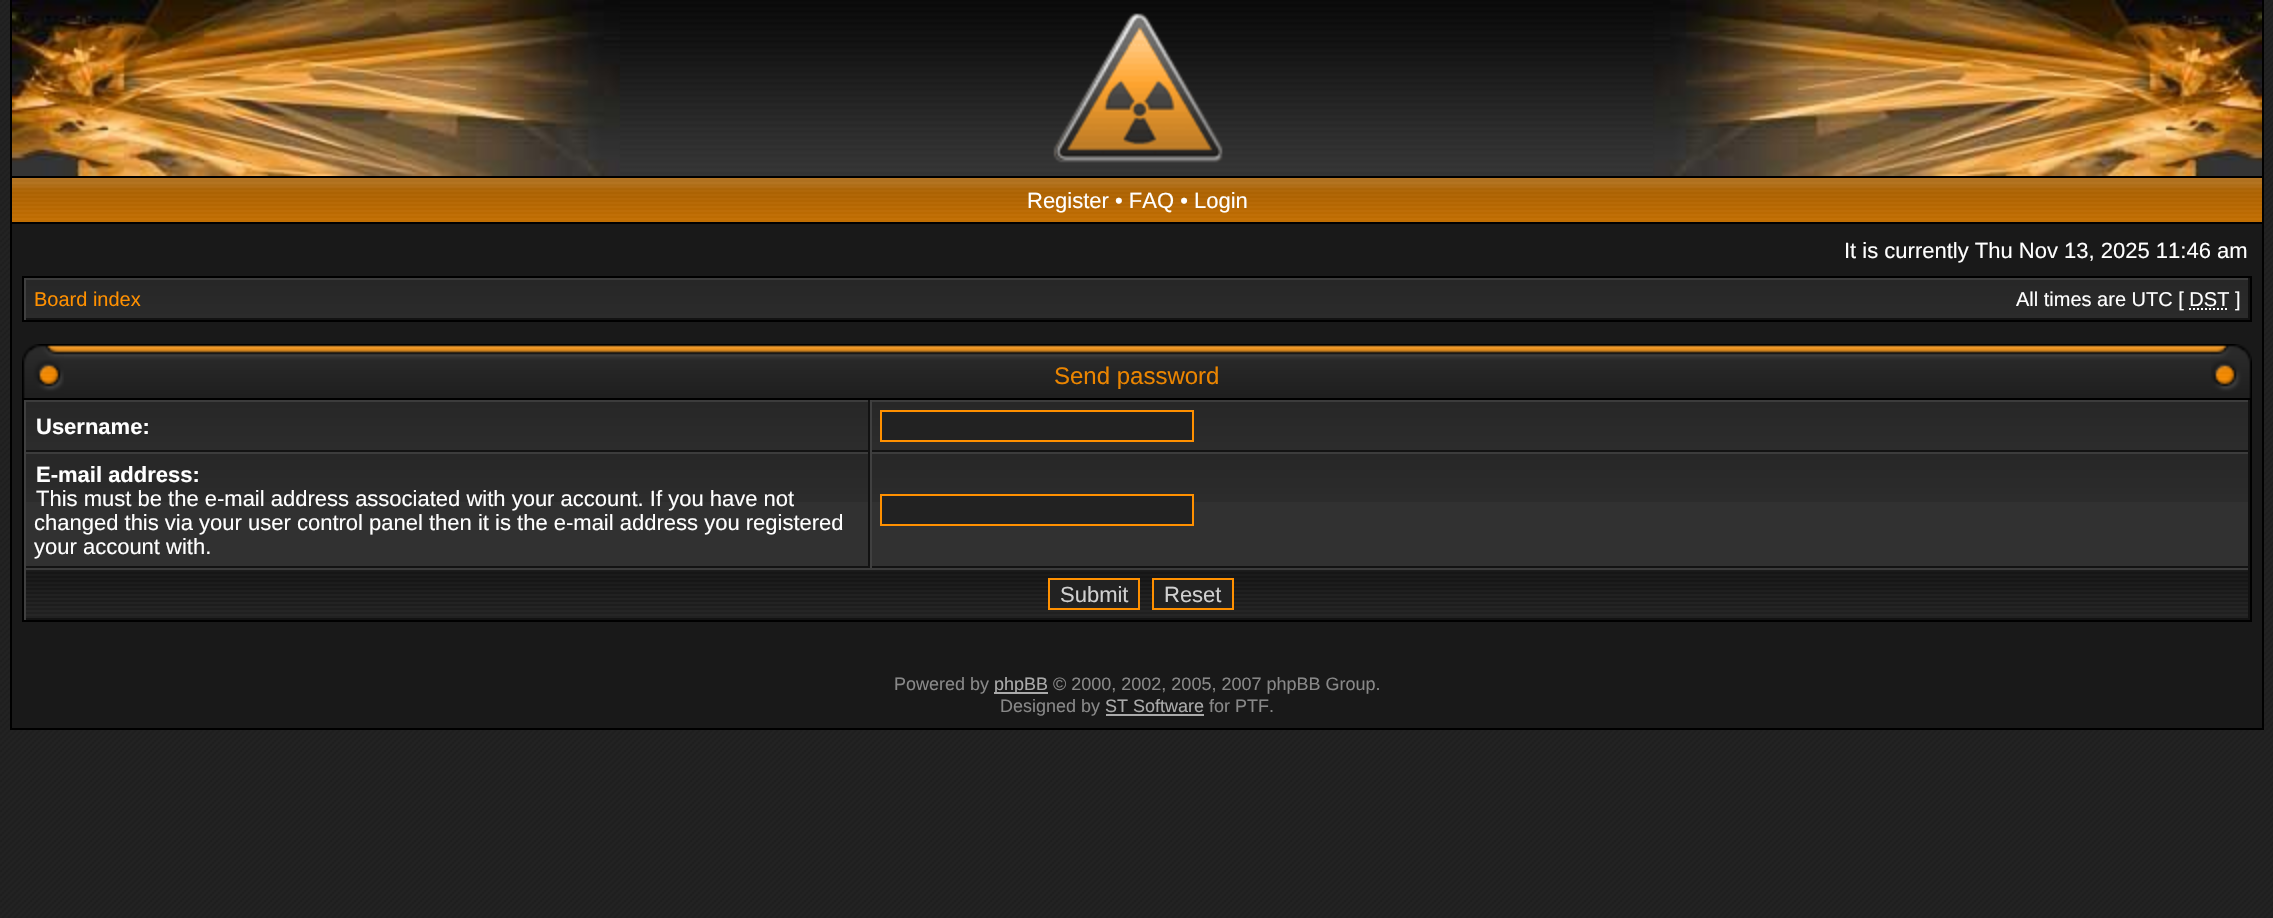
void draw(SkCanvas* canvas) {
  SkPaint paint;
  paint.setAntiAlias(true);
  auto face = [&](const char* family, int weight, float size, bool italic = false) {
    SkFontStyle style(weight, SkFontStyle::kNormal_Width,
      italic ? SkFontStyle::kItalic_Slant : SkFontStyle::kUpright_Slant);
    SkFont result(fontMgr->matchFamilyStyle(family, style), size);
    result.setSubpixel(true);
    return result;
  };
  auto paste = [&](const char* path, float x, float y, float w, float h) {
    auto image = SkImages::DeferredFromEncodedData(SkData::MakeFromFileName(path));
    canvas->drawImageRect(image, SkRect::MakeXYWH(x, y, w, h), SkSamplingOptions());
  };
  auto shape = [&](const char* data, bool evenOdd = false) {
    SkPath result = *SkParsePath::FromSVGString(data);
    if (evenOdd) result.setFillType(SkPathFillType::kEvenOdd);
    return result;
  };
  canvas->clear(0xffffffff);
  paste("img/1.png", 0, 0, 2273, 918);
  {
    const struct { float x, y, w, h; SkColor color; } items[] = {
      {2262, 0, 2, 730, 0xff000000},
      {10, 728, 2254, 2, 0xff000000},
      {10, 0, 2, 730, 0xff000000},
    };
    for (auto [x, y, w, h, color] : items) {
      paint.setColor(color);
      canvas->drawRect(SkRect::MakeXYWH(x, y, w, h), paint);
    }
  }
  paste("img/2.png", 620, 0, 1033, 176);
  paste("img/3.png", 12, 0, 608, 176);
  paste("img/4.png", 1653, 0, 609, 176);
  paste("img/5.png", 1053, 13, 170, 150);
  paste("img/6.png", 12, 178, 2250, 44);
  {
    const struct { float x, y, w, h; SkColor color; } items[] = {
      {12, 176, 2250, 2, 0xff000000},
      {12, 222, 2250, 2, 0xff000000},
      {12, 224, 2250, 504, 0xff191919},
    };
    for (auto [x, y, w, h, color] : items) {
      paint.setColor(color);
      canvas->drawRect(SkRect::MakeXYWH(x, y, w, h), paint);
    }
  }
  paint.setStroke(true);
  paint.setStrokeWidth(2);
  paint.setColor(0xff000000);
  canvas->drawRect(SkRect::MakeXYWH(23, 277, 2228, 44), paint);
  paste("img/7.png", 26, 280, 2222, 38);
  paint.setStroke(false);
  {
    const struct { float x, y, w, h; SkColor color; } items[] = {
      {24, 278, 2226, 2, 0xff3c3c3c},
      {2248, 278, 2, 42, 0xff121212},
      {24, 318, 2226, 2, 0xff131313},
      {24, 278, 2, 42, 0xff404040},
    };
    for (auto [x, y, w, h, color] : items) {
      paint.setColor(color);
      canvas->drawRect(SkRect::MakeXYWH(x, y, w, h), paint);
    }
  }
  paint.setStroke(true);
  paint.setColor(0xffffffff);
  paint.setPathEffect(SkDashPathEffect::Make({{2, 2}}, 0));
  canvas->drawPath(shape("M2189 309H2229"), paint);
  paint.setPathEffect(nullptr);
  paste("img/8.png", 64, 344, 2147, 54);
  paste("img/9.png", 22, 344, 42, 54);
  paste("img/10.png", 2211, 344, 41, 54);
  paint.setStroke(false);
  paint.setColor(0xff313131);
  canvas->drawRect(SkRect::MakeXYWH(26, 502, 2222, 64), paint);
  paint.setStroke(true);
  paint.setColor(0xff000000);
  canvas->drawRect(SkRect::MakeXYWH(23, 399, 2228, 222), paint);
  paste("img/11.png", 26, 402, 842, 48);
  paint.setStroke(false);
  {
    const struct { float x, y, w, h; SkColor color; } items[] = {
      {24, 400, 2226, 2, 0xff3c3c3c},
      {868, 400, 2, 52, 0xff121212},
      {24, 450, 846, 2, 0xff131313},
      {24, 400, 2, 52, 0xff404040},
    };
    for (auto [x, y, w, h, color] : items) {
      paint.setColor(color);
      canvas->drawRect(SkRect::MakeXYWH(x, y, w, h), paint);
    }
  }
  paste("img/12.png", 872, 402, 1376, 48);
  {
    const struct { float x, y, w, h; SkColor color; } items[] = {
      {2248, 400, 2, 52, 0xff121212},
      {870, 450, 1380, 2, 0xff131313},
      {870, 400, 2, 52, 0xff404040},
    };
    for (auto [x, y, w, h, color] : items) {
      paint.setColor(color);
      canvas->drawRect(SkRect::MakeXYWH(x, y, w, h), paint);
    }
  }
  paint.setColor(0xff222222);
  canvas->drawRect(SkRect::MakeXYWH(881, 411, 312, 30), paint);
  paint.setStroke(true);
  paint.setColor(0xffff9000);
  canvas->drawRect(SkRect::MakeXYWH(881, 411, 312, 30), paint);
  paste("img/11.png", 26, 454, 842, 48);
  paint.setStroke(false);
  {
    const struct { float x, y, w, h; SkColor color; } items[] = {
      {24, 452, 2226, 2, 0xff3c3c3c},
      {868, 452, 2, 116, 0xff121212},
      {24, 566, 846, 2, 0xff131313},
      {24, 452, 2, 116, 0xff404040},
    };
    for (auto [x, y, w, h, color] : items) {
      paint.setColor(color);
      canvas->drawRect(SkRect::MakeXYWH(x, y, w, h), paint);
    }
  }
  paste("img/12.png", 872, 454, 1376, 48);
  {
    const struct { float x, y, w, h; SkColor color; } items[] = {
      {2248, 452, 2, 116, 0xff121212},
      {870, 566, 1380, 2, 0xff131313},
      {870, 452, 2, 116, 0xff404040},
    };
    for (auto [x, y, w, h, color] : items) {
      paint.setColor(color);
      canvas->drawRect(SkRect::MakeXYWH(x, y, w, h), paint);
    }
  }
  paint.setColor(0xff222222);
  canvas->drawRect(SkRect::MakeXYWH(881, 495, 312, 30), paint);
  paint.setStroke(true);
  paint.setColor(0xffff9000);
  canvas->drawRect(SkRect::MakeXYWH(881, 495, 312, 30), paint);
  paste("img/13.png", 26, 570, 2222, 48);
  paint.setStroke(false);
  {
    const struct { float x, y, w, h; SkColor color; } items[] = {
      {24, 568, 2226, 2, 0xff3c3c3c},
      {2248, 568, 2, 52, 0xff121212},
      {24, 618, 2226, 2, 0xff131313},
      {24, 568, 2, 52, 0xff404040},
      {1050, 580, 88, 26, 0xff222222},
    };
    for (auto [x, y, w, h, color] : items) {
      paint.setColor(color);
      canvas->drawRect(SkRect::MakeXYWH(x, y, w, h), paint);
    }
  }
  paint.setStroke(true);
  paint.setColor(0xffff9000);
  canvas->drawRect(SkRect::MakeXYWH(1049, 579, 90, 30), paint);
  paint.setStroke(false);
  paint.setColor(0xff222222);
  canvas->drawRect(SkRect::MakeXYWH(1154, 580, 78, 26), paint);
  paint.setStroke(true);
  paint.setColor(0xffff9000);
  canvas->drawRect(SkRect::MakeXYWH(1153, 579, 80, 30), paint);
  paint.setStroke(false);
  paint.setColor(0xffaaaaaa);
  canvas->drawRect(SkRect::MakeXYWH(994, 692, 54, 2), paint);
  canvas->drawRect(SkRect::MakeXYWH(1106, 714, 98, 2), paint);
  auto f0 = face("Liberation Sans", 400, 22);
  paint.setColor(0xffffffff);
  canvas->drawString("Register • FAQ • Login", 1027, 208, f0, paint);
  canvas->drawString("It is currently Thu Nov 13, 2025 11:46 am", 1844, 258, f0, paint);
  auto f1 = face("Liberation Sans", 400, 20);
  paint.setColor(0xffff9000);
  canvas->drawString("Board index", 34, 306, f1, paint);
  paint.setColor(0xffffffff);
  canvas->drawString("All times are UTC [ DST ]", 2016, 306, f1, paint);
  auto f2 = face("Liberation Sans", 400, 24);
  paint.setColor(0xffeb8500);
  canvas->drawString("Send password", 1054, 384, f2, paint);
  auto f3 = face("Liberation Sans", 700, 22);
  paint.setColor(0xffffffff);
  canvas->drawString("Username:", 36, 434, f3, paint);
  canvas->drawString("E-mail address:", 36, 482, f3, paint);
  {
    const struct { const char* s; float x, y; } items[] = {
      {"This must be the e-mail address associated with your account. If you have not", 36, 506},
      {"changed this via your user control panel then it is the e-mail address you registered", 34, 530},
      {"your account with.", 34, 554},
    };
    for (auto [s, x, y] : items) {
      canvas->drawString(s, x, y, f0, paint);
    }
  }
  paint.setColor(0xffd0d0d0);
  canvas->drawString("Submit", 1060, 602, f0, paint);
  canvas->drawString("Reset", 1164, 602, f0, paint);
  auto f4 = face("Liberation Sans", 400, 18);
  paint.setColor(0xff888888);
  canvas->drawString("Powered by", 894, 690, f4, paint);
  paint.setColor(0xffaaaaaa);
  canvas->drawString("phpBB", 994, 690, f4, paint);
  paint.setColor(0xff888888);
  canvas->drawString("© 2000, 2002, 2005, 2007 phpBB Group.", 1053, 690, f4, paint);
  canvas->drawString("Designed by", 1000, 712, f4, paint);
  paint.setColor(0xffaaaaaa);
  canvas->drawString("ST Software", 1105, 712, f4, paint);
  paint.setColor(0xff888888);
  canvas->drawString("for PTF.", 1209, 712, f4, paint);
}
